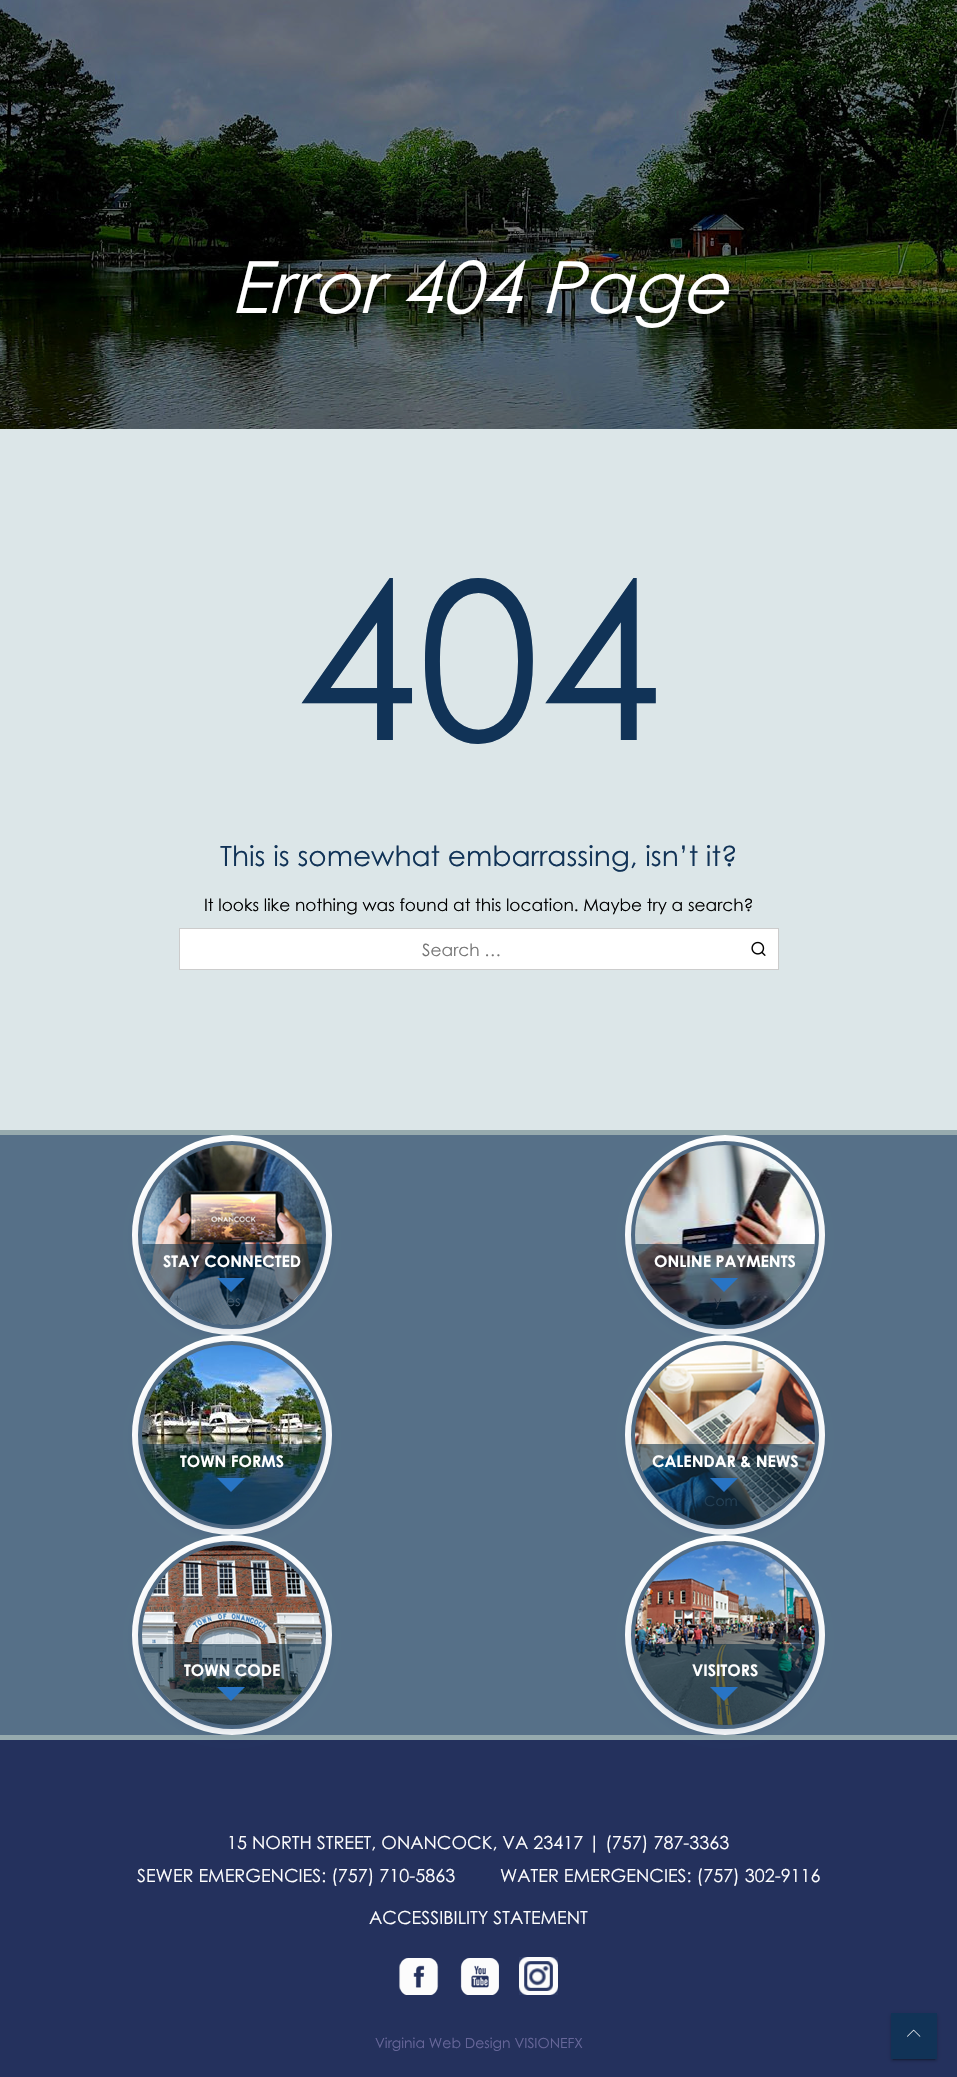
void draw(SkCanvas* canvas) {
  SkPaint paint;
  paint.setAntiAlias(true);
  auto face = [&](const char* family, int weight, float size, bool italic = false) {
    SkFontStyle style(weight, SkFontStyle::kNormal_Width,
      italic ? SkFontStyle::kItalic_Slant : SkFontStyle::kUpright_Slant);
    SkFont result(fontMgr->matchFamilyStyle(family, style), size);
    result.setSubpixel(true);
    return result;
  };
  auto paste = [&](const char* path, float x, float y, float w, float h) {
    auto image = SkImages::DeferredFromEncodedData(SkData::MakeFromFileName(path));
    canvas->drawImageRect(image, SkRect::MakeXYWH(x, y, w, h), SkSamplingOptions());
  };
  auto shape = [&](const char* data, bool evenOdd = false) {
    SkPath result = *SkParsePath::FromSVGString(data);
    if (evenOdd) result.setFillType(SkPathFillType::kEvenOdd);
    return result;
  };
  canvas->clear(0xff24315d);
  paste("img/1.png", 0, 0, 957, 429);
  paint.setColor(0xffdce6e8);
  canvas->drawRect(SkRect::MakeXYWH(0, 429, 957, 701), paint);
  paint.setColor(0xffffffff);
  canvas->drawRect(SkRect::MakeXYWH(179.5f, 928.5f, 599, 41), paint);
  paint.setStroke(true);
  paint.setStrokeWidth(1);
  paint.setColor(0xffcccccc);
  canvas->drawRect(SkRect::MakeXYWH(179.5f, 928.5f, 599, 41), paint);
  paste("img/2.png", 751, 941, 15, 15);
  paint.setStroke(false);
  {
    const struct { float x, y, w, h; SkColor color; } items[] = {
      {0, 1135, 957, 600, 0xff567088},
      {0, 1130, 957, 5, 0xff96aaae},
      {0, 1735, 957, 5, 0xff96aaae},
    };
    for (auto [x, y, w, h, color] : items) {
      paint.setColor(color);
      canvas->drawRect(SkRect::MakeXYWH(x, y, w, h), paint);
    }
  }
  paint.setStroke(true);
  paint.setStrokeWidth(6);
  paint.setColor(0xffffffff);
  canvas->drawCircle(232, 1235, 97, paint);
  paint.setStroke(false);
  paint.setColor(0x33001e50);
  paint.setMaskFilter(SkMaskFilter::MakeBlur(kNormal_SkBlurStyle, 8));
  canvas->drawRoundRect(SkRect::MakeXYWH(142, 1150, 180, 180), 90, 90, paint);
  paint.setMaskFilter(nullptr);
  paste("img/3.png", 142, 1145, 180, 180);
  canvas->save();
  canvas->clipPath(shape("M232 1145C281.5 1145 322 1185.5 322 1235C322 1284.5 281.5 1325 232 1325C182.5 1325 142 1284.5 142 1235C142 1185.5 182.5 1145 232 1145Z"), true);
  paint.setColor(0x8c00253c);
  canvas->drawRect(SkRect::MakeXYWH(142, 1244, 180, 81), paint);
  canvas->restore();
  paint.setColor(0xff2874c4);
  canvas->drawPath(shape("M217 1278H245L231 1292Z"), paint);
  paint.setStroke(true);
  paint.setColor(0xffffffff);
  canvas->drawCircle(725, 1235, 97, paint);
  paint.setStroke(false);
  paint.setColor(0x33001e50);
  paint.setMaskFilter(SkMaskFilter::MakeBlur(kNormal_SkBlurStyle, 8));
  canvas->drawRoundRect(SkRect::MakeXYWH(635, 1150, 180, 180), 90, 90, paint);
  paint.setMaskFilter(nullptr);
  paste("img/4.png", 635, 1145, 180, 180);
  canvas->save();
  canvas->clipPath(shape("M725 1145C774.5 1145 815 1185.5 815 1235C815 1284.5 774.5 1325 725 1325C675.5 1325 635 1284.5 635 1235C635 1185.5 675.5 1145 725 1145Z"), true);
  paint.setColor(0x8c00253c);
  canvas->drawRect(SkRect::MakeXYWH(635, 1244, 180, 81), paint);
  canvas->restore();
  paint.setColor(0xff2874c4);
  canvas->drawPath(shape("M710 1278H738L724 1292Z"), paint);
  paint.setStroke(true);
  paint.setColor(0xffffffff);
  canvas->drawCircle(232, 1435, 97, paint);
  paint.setStroke(false);
  paint.setColor(0x33001e50);
  paint.setMaskFilter(SkMaskFilter::MakeBlur(kNormal_SkBlurStyle, 8));
  canvas->drawRoundRect(SkRect::MakeXYWH(142, 1350, 180, 180), 90, 90, paint);
  paint.setMaskFilter(nullptr);
  paste("img/5.png", 142, 1345, 180, 180);
  canvas->save();
  canvas->clipPath(shape("M232 1345C281.5 1345 322 1385.5 322 1435C322 1484.5 281.5 1525 232 1525C182.5 1525 142 1484.5 142 1435C142 1385.5 182.5 1345 232 1345Z"), true);
  paint.setColor(0x8c00253c);
  canvas->drawRect(SkRect::MakeXYWH(142, 1444, 180, 81), paint);
  canvas->restore();
  paint.setColor(0xff2874c4);
  canvas->drawPath(shape("M217 1478H245L231 1492Z"), paint);
  paint.setStroke(true);
  paint.setColor(0xffffffff);
  canvas->drawCircle(725, 1435, 97, paint);
  paint.setStroke(false);
  paint.setColor(0x33001e50);
  paint.setMaskFilter(SkMaskFilter::MakeBlur(kNormal_SkBlurStyle, 8));
  canvas->drawRoundRect(SkRect::MakeXYWH(635, 1350, 180, 180), 90, 90, paint);
  paint.setMaskFilter(nullptr);
  paste("img/6.png", 635, 1345, 180, 180);
  canvas->save();
  canvas->clipPath(shape("M725 1345C774.5 1345 815 1385.5 815 1435C815 1484.5 774.5 1525 725 1525C675.5 1525 635 1484.5 635 1435C635 1385.5 675.5 1345 725 1345Z"), true);
  paint.setColor(0x8c00253c);
  canvas->drawRect(SkRect::MakeXYWH(635, 1444, 180, 81), paint);
  canvas->restore();
  paint.setColor(0xff2874c4);
  canvas->drawPath(shape("M710 1478H738L724 1492Z"), paint);
  paint.setStroke(true);
  paint.setColor(0xffffffff);
  canvas->drawCircle(232, 1635, 97, paint);
  paint.setStroke(false);
  paint.setColor(0x33001e50);
  paint.setMaskFilter(SkMaskFilter::MakeBlur(kNormal_SkBlurStyle, 8));
  canvas->drawRoundRect(SkRect::MakeXYWH(142, 1550, 180, 180), 90, 90, paint);
  paint.setMaskFilter(nullptr);
  paste("img/7.png", 142, 1545, 180, 180);
  canvas->save();
  canvas->clipPath(shape("M232 1545C281.5 1545 322 1585.5 322 1635C322 1684.5 281.5 1725 232 1725C182.5 1725 142 1684.5 142 1635C142 1585.5 182.5 1545 232 1545Z"), true);
  paint.setColor(0x8c00253c);
  canvas->drawRect(SkRect::MakeXYWH(142, 1644, 180, 81), paint);
  canvas->restore();
  paint.setColor(0xff2874c4);
  canvas->drawPath(shape("M217 1687H245L231 1701Z"), paint);
  paint.setStroke(true);
  paint.setColor(0xffffffff);
  canvas->drawCircle(725, 1635, 97, paint);
  paint.setStroke(false);
  paint.setColor(0x33001e50);
  paint.setMaskFilter(SkMaskFilter::MakeBlur(kNormal_SkBlurStyle, 8));
  canvas->drawRoundRect(SkRect::MakeXYWH(635, 1550, 180, 180), 90, 90, paint);
  paint.setMaskFilter(nullptr);
  paste("img/8.png", 635, 1545, 180, 180);
  canvas->save();
  canvas->clipPath(shape("M725 1545C774.5 1545 815 1585.5 815 1635C815 1684.5 774.5 1725 725 1725C675.5 1725 635 1684.5 635 1635C635 1585.5 675.5 1545 725 1545Z"), true);
  paint.setColor(0x8c00253c);
  canvas->drawRect(SkRect::MakeXYWH(635, 1644, 180, 81), paint);
  canvas->restore();
  paint.setColor(0xff2874c4);
  canvas->drawPath(shape("M710 1687H738L724 1701Z"), paint);
  paste("img/9.png", 399, 1958, 40, 37);
  paste("img/10.png", 460, 1958, 39, 37);
  paste("img/11.png", 519, 1957, 39, 38);
  paint.setColor(0x33000000);
  paint.setMaskFilter(SkMaskFilter::MakeBlur(kNormal_SkBlurStyle, 0.5f));
  canvas->drawRect(SkRect::MakeXYWH(893, 2018, 42, 42), paint);
  paint.setMaskFilter(nullptr);
  paint.setColor(0x1f000000);
  paint.setMaskFilter(SkMaskFilter::MakeBlur(kNormal_SkBlurStyle, 2.5f));
  canvas->drawRect(SkRect::MakeXYWH(891, 2014, 46, 46), paint);
  paint.setMaskFilter(nullptr);
  paint.setColor(0x24000000);
  paint.setMaskFilter(SkMaskFilter::MakeBlur(kNormal_SkBlurStyle, 1));
  canvas->drawRect(SkRect::MakeXYWH(891, 2015, 46, 46), paint);
  paint.setMaskFilter(nullptr);
  paint.setColor(0xff113357);
  canvas->drawRect(SkRect::MakeXYWH(891, 2013, 46, 46), paint);
  paste("img/12.png", 907, 2029, 14, 8);
  auto f0 = face("Century Gothic", 400, 72, true);
  paint.setColor(0xffffffff);
  canvas->drawString("Error 404 Page", 230, 313, f0, paint);
  auto f1 = face("Century Gothic", 400, 220);
  paint.setColor(0xff113357);
  canvas->drawString("404", 296, 740, f1, paint);
  auto f2 = face("Century Gothic", 400, 28);
  canvas->drawString("This is somewhat embarrassing, isn’t it?", 220, 866, f2, paint);
  auto f3 = face("Century Gothic", 400, 17);
  paint.setColor(0xff010101);
  canvas->drawString("It looks like nothing was found at this location. Maybe try a search?", 204, 911, f3, paint);
  paint.setColor(0xff757575);
  canvas->drawString("Search …", 422, 956, f3, paint);
  auto f4 = face("Century Gothic", 700, 16);
  paint.setColor(0xffffffff);
  canvas->drawString("STAY CONNECTED", 163, 1267, f4, paint);
  auto f5 = face("Century Gothic", 400, 14);
  paint.setColor(0xff465b6d);
  canvas->drawString("t", 175, 1306, f5, paint);
  canvas->drawString("es", 226, 1306, f5, paint);
  paint.setColor(0xffffffff);
  canvas->drawString("ONLINE PAYMENTS", 654, 1267, f4, paint);
  paint.setColor(0xff2f3947);
  canvas->drawString("y", 714, 1306, f5, paint);
  paint.setColor(0xffffffff);
  canvas->drawString("TOWN FORMS", 180, 1467, f4, paint);
  canvas->drawString("CALENDAR & NEWS", 652, 1467, f4, paint);
  paint.setColor(0xff244055);
  canvas->drawString("Com", 704, 1506, f5, paint);
  paint.setColor(0xffffffff);
  canvas->drawString("TOWN CODE", 184, 1676, f4, paint);
  canvas->drawString("VISITORS", 692, 1676, f4, paint);
  paint.setColor(0xff394a4d);
  canvas->drawString("t T", 717, 1715, f5, paint);
  auto f6 = face("Century Gothic", 400, 18);
  paint.setColor(0xffffffff);
  {
    const struct { const char* s; float x, y; } items[] = {
      {"15 NORTH STREET, ONANCOCK, VA 23417 | (757) 787-3363", 227, 1849},
      {"SEWER EMERGENCIES: (757) 710-5863", 137, 1882},
      {"WATER EMERGENCIES: (757) 302-9116", 500, 1882},
      {"ACCESSIBILITY STATEMENT", 369, 1924},
    };
    for (auto [s, x, y] : items) {
      canvas->drawString(s, x, y, f6, paint);
    }
  }
  paint.setColor(0xff666699);
  canvas->drawString("Virginia Web Design VISIONEFX", 375, 2048, f5, paint);
}
